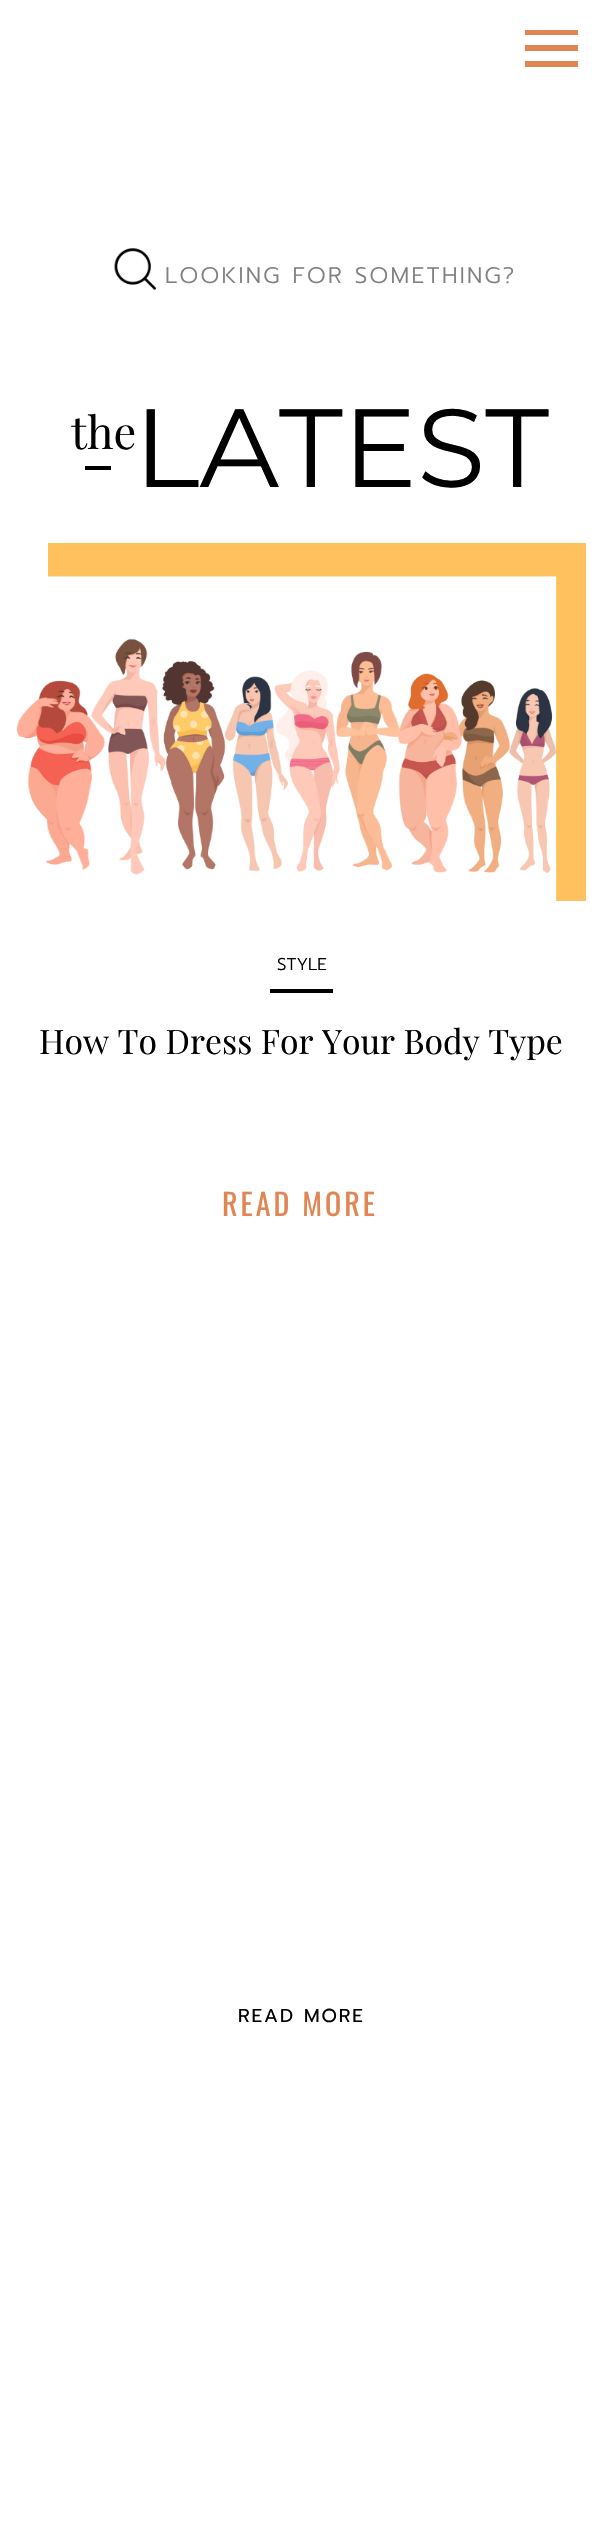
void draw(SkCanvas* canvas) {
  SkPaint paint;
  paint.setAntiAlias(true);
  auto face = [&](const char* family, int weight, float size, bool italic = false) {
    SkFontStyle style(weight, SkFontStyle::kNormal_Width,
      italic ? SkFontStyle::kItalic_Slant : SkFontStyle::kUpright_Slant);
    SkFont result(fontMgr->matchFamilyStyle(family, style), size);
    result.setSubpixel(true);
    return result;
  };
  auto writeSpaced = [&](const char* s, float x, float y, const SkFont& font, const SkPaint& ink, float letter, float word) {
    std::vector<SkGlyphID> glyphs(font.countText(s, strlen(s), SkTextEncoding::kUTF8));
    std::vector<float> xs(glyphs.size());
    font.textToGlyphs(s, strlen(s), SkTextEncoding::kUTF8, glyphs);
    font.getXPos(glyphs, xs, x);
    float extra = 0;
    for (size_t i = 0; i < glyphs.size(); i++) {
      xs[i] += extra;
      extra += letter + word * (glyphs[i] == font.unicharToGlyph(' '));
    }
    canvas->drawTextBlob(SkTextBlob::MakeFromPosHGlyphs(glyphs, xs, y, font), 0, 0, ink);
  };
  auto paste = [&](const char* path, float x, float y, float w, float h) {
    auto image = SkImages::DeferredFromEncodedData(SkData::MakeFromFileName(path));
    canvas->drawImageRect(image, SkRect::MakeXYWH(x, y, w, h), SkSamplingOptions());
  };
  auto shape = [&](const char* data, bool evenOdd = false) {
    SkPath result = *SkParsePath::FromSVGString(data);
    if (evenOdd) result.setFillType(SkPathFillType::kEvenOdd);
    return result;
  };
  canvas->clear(0xffffffff);
  paint.setColor(0xffe18653);
  canvas->drawPath(shape("M525 45H578V51H525ZM525 30H578V35H525ZM525 61H578V67H525Z"), paint);
  paste("img/1.png", 114, 248, 42, 42);
  paint.setColor(0xff000000);
  canvas->drawRect(SkRect::MakeXYWH(85, 466, 26, 4), paint);
  paint.setColor(0xfffec15e);
  canvas->drawRect(SkRect::MakeXYWH(48, 543, 538, 358), paint);
  paste("img/2.png", 16, 576, 541, 325);
  paint.setColor(0xff000000);
  canvas->drawRect(SkRect::MakeXYWH(270, 989, 63, 4), paint);
  auto f0 = face("Prompt", 300, 22.5f);
  paint.setColor(0xff808080);
  writeSpaced("LOOKING FOR SOMETHING?", 165, 283, f0, paint, 2.25f, 0);
  auto f1 = face("Playfair Display", 400, 45);
  paint.setColor(0xff000000);
  canvas->drawString("the", 71, 449, f1, paint);
  auto f2 = face("Montserrat", 100, 111);
  canvas->drawString("LATEST", 134, 487, f2, paint);
  auto f3 = face("Prompt", 300, 17);
  canvas->drawString("STYLE", 277, 970, f3, paint);
  auto f4 = face("Playfair Display", 400, 33.8f);
  canvas->drawString("How To Dress For Your Body Type", 39, 1054, f4, paint);
  auto f5 = face("Oswald", 400, 30);
  paint.setColor(0xffe18653);
  writeSpaced("READ MORE", 222, 1216, f5, paint, 3, 0);
  auto f6 = face("Prompt", 400, 18.75f);
  paint.setColor(0xff000000);
  writeSpaced("READ MORE", 238, 2022, f6, paint, 1.9f, 0);
}
